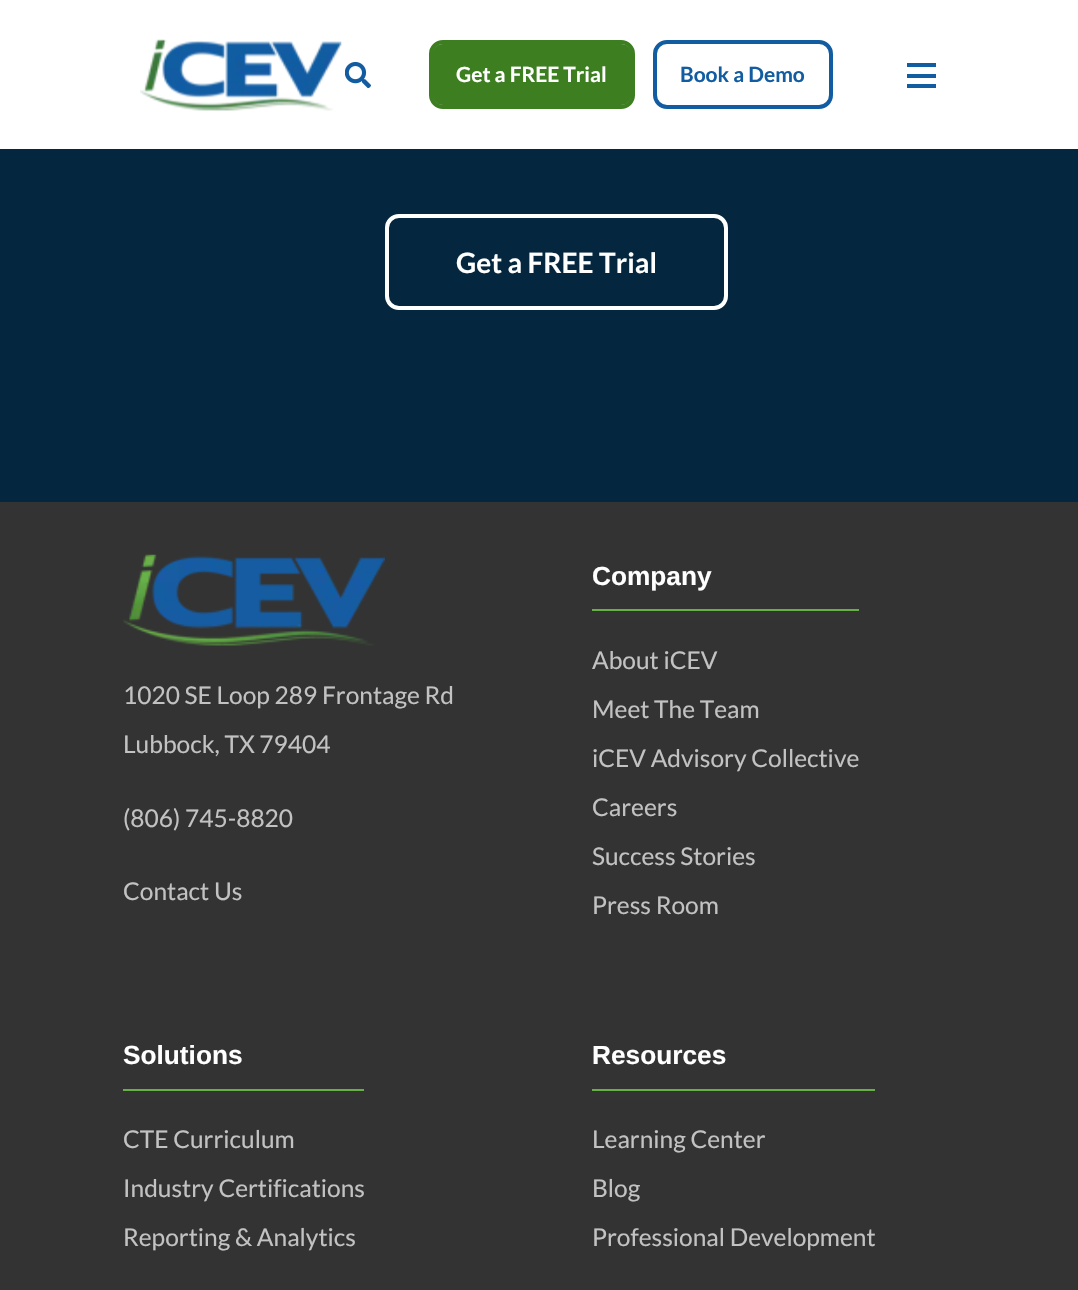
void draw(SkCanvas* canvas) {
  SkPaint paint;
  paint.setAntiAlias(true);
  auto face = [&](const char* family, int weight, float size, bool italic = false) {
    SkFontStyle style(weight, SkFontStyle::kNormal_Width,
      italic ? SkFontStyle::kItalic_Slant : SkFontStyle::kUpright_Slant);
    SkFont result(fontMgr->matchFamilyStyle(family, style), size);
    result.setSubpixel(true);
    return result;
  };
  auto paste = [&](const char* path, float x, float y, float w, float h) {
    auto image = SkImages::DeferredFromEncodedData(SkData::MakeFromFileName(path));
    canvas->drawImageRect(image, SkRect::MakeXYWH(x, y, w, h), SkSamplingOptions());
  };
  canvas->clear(0xff04263e);
  paint.setColor(0xffffffff);
  canvas->drawRect(SkRect::MakeXYWH(0, 0, 1078, 149), paint);
  paste("img/1.png", 140, 39, 202, 72);
  paste("img/2.png", 345, 61, 26, 27);
  paint.setStroke(true);
  paint.setStrokeWidth(4);
  paint.setColor(0xff3d7e21);
  canvas->drawRoundRect(SkRect::MakeXYWH(431, 42, 202, 65), 12, 12, paint);
  paint.setStroke(false);
  canvas->drawRoundRect(SkRect::MakeXYWH(432, 44, 200, 61), 11, 11, paint);
  paint.setStroke(true);
  paint.setColor(0xff125da1);
  canvas->drawRoundRect(SkRect::MakeXYWH(655, 42, 176, 65), 12, 12, paint);
  paint.setStroke(false);
  {
    const struct { float x, y, w, h; SkColor color; } items[] = {
      {907, 63, 29, 4, 0xff125da1},
      {907, 74, 29, 4, 0xff125da1},
      {907, 84, 29, 4, 0xff125da1},
    };
    for (auto [x, y, w, h, color] : items) {
      paint.setColor(color);
      canvas->drawRect(SkRect::MakeXYWH(x, y, w, h), paint);
    }
  }
  paint.setStroke(true);
  paint.setColor(0xffffffff);
  canvas->drawRoundRect(SkRect::MakeXYWH(387, 216, 339, 92), 12, 12, paint);
  paint.setStroke(false);
  paint.setColor(0xff333333);
  canvas->drawRect(SkRect::MakeXYWH(0, 502, 1078, 788), paint);
  paste("img/3.png", 123, 554, 262, 92);
  {
    const struct { float x, y, w, h; SkColor color; } items[] = {
      {592, 609, 267, 2, 0xff67b045},
      {123, 1089, 241, 2, 0xff67b045},
      {592, 1089, 283, 2, 0xff67b045},
    };
    for (auto [x, y, w, h, color] : items) {
      paint.setColor(color);
      canvas->drawRect(SkRect::MakeXYWH(x, y, w, h), paint);
    }
  }
  auto f0 = face("Lato", 700, 21);
  paint.setColor(0xffffffff);
  canvas->drawString("Get a FREE Trial", 456, 82, f0, paint);
  paint.setColor(0xff125da1);
  canvas->drawString("Book a Demo", 680, 82, f0, paint);
  auto f1 = face("Lato", 700, 28);
  paint.setColor(0xffffffff);
  canvas->drawString("Get a FREE Trial", 456, 273, f1, paint);
  auto f2 = face("Lato", 400, 24.5f);
  paint.setColor(0xffc2c2c2);
  {
    const struct { const char* s; float x, y; } items[] = {
      {"1020 SE Loop 289 Frontage Rd", 123, 704},
      {"Lubbock, TX 79404", 123, 753},
      {"(806) 745-8820", 123, 827},
      {"Contact Us", 123, 900},
    };
    for (auto [s, x, y] : items) {
      canvas->drawString(s, x, y, f2, paint);
    }
  }
  auto f3 = face("Liberation Sans", 700, 26.25f);
  paint.setColor(0xffffffff);
  canvas->drawString("Company", 592, 585, f3, paint);
  paint.setColor(0xffc2c2c2);
  {
    const struct { const char* s; float x, y; } items[] = {
      {"About iCEV", 592, 669},
      {"Meet The Team", 592, 718},
      {"iCEV Advisory Collective", 592, 767},
      {"Careers", 592, 816},
      {"Success Stories", 592, 865},
      {"Press Room", 592, 914},
    };
    for (auto [s, x, y] : items) {
      canvas->drawString(s, x, y, f2, paint);
    }
  }
  paint.setColor(0xffffffff);
  canvas->drawString("Solutions", 123, 1064, f3, paint);
  paint.setColor(0xffc2c2c2);
  {
    const struct { const char* s; float x, y; } items[] = {
      {"CTE Curriculum", 123, 1148},
      {"Industry Certifications", 123, 1197},
      {"Reporting & Analytics", 123, 1246},
    };
    for (auto [s, x, y] : items) {
      canvas->drawString(s, x, y, f2, paint);
    }
  }
  paint.setColor(0xffffffff);
  canvas->drawString("Resources", 592, 1064, f3, paint);
  paint.setColor(0xffc2c2c2);
  {
    const struct { const char* s; float x, y; } items[] = {
      {"Learning Center", 592, 1148},
      {"Blog", 592, 1197},
      {"Professional Development", 592, 1246},
    };
    for (auto [s, x, y] : items) {
      canvas->drawString(s, x, y, f2, paint);
    }
  }
}
